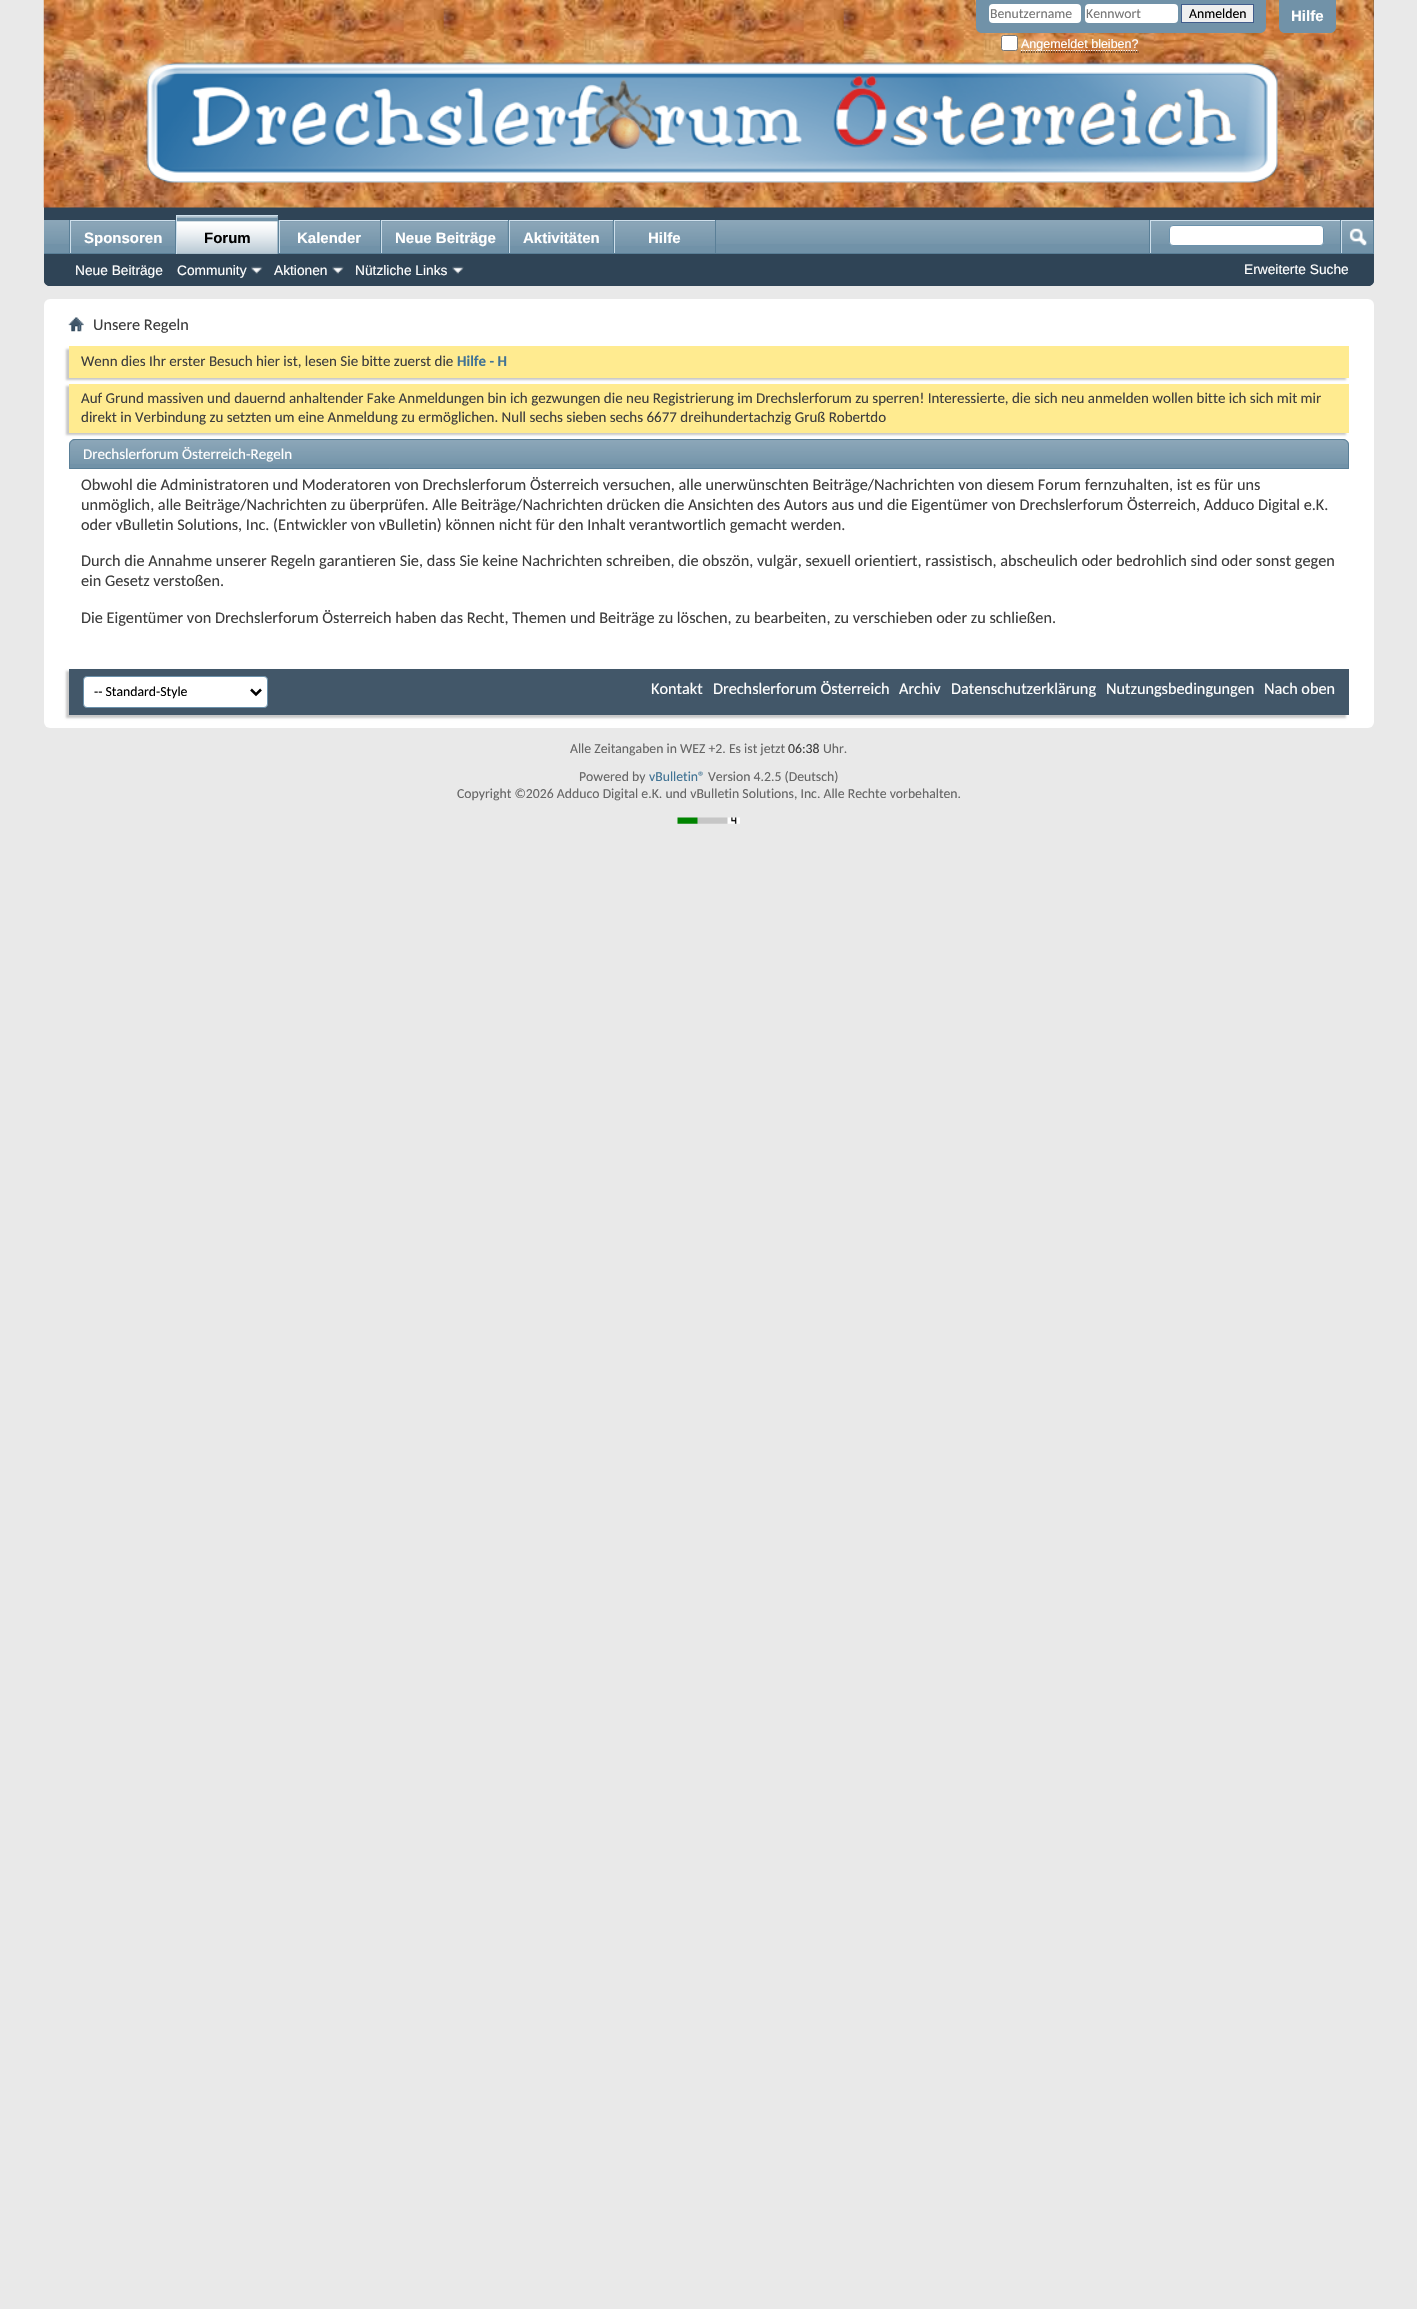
void draw(SkCanvas* canvas) {
  SkPaint paint;
  paint.setAntiAlias(true);
  auto face = [&](const char* family, int weight, float size, bool italic = false) {
    SkFontStyle style(weight, SkFontStyle::kNormal_Width,
      italic ? SkFontStyle::kItalic_Slant : SkFontStyle::kUpright_Slant);
    SkFont result(fontMgr->matchFamilyStyle(family, style), size);
    result.setSubpixel(true);
    return result;
  };
  auto paste = [&](const char* path, float x, float y, float w, float h) {
    auto image = SkImages::DeferredFromEncodedData(SkData::MakeFromFileName(path));
    canvas->drawImageRect(image, SkRect::MakeXYWH(x, y, w, h), SkSamplingOptions());
  };
  auto shape = [&](const char* data, bool evenOdd = false) {
    SkPath result = *SkParsePath::FromSVGString(data);
    if (evenOdd) result.setFillType(SkPathFillType::kEvenOdd);
    return result;
  };
  canvas->clear(0xffe9e9e9);
  paint.setColor(0xff2f4456);
  canvas->drawPath(shape("M44 0H1374V280C1374 283.5 1371.5 286 1368 286H50C46.5 286 44 283.5 44 280Z"), paint);
  paste("img/1.png", 1373, 0, 1, 27);
  paste("img/2.png", 43, 0, 1331, 208);
  paint.setColor(0xff7192a8);
  canvas->drawPath(shape("M976 0H1266V27C1266 30.5 1263.5 33 1260 33H982C978.5 33 976 30.5 976 27Z"), paint);
  paint.setColor(0xffffffff);
  canvas->drawRoundRect(SkRect::MakeXYWH(989, 4, 92, 19), 4, 4, paint);
  canvas->drawRoundRect(SkRect::MakeXYWH(1085, 4, 93, 19), 4, 4, paint);
  paint.setColor(0xffefefef);
  canvas->drawRect(SkRect::MakeXYWH(1181.5f, 4.5f, 72, 18), paint);
  paint.setStroke(true);
  paint.setStrokeWidth(1);
  paint.setColor(0xff415d8d);
  canvas->drawRect(SkRect::MakeXYWH(1181.5f, 4.5f, 72, 18), paint);
  paint.setStroke(false);
  paint.setColor(0xffffffff);
  canvas->drawRoundRect(SkRect::MakeXYWH(1001.5f, 35.5f, 16, 15), 2, 2, paint);
  paint.setStroke(true);
  paint.setColor(0xff767676);
  canvas->drawRoundRect(SkRect::MakeXYWH(1001.5f, 35.5f, 16, 15), 2, 2, paint);
  paint.setStrokeWidth(1.2f);
  paint.setColor(0xff000000);
  paint.setPathEffect(SkDashPathEffect::Make({{1.25f, 1.25f}}, 0));
  canvas->drawPath(shape("M1021 52H1139"), paint);
  paint.setPathEffect(nullptr);
  paint.setColor(0xffffffff);
  paint.setPathEffect(SkDashPathEffect::Make({{1.25f, 1.25f}}, 0));
  canvas->drawPath(shape("M1021 50.5H1138.5"), paint);
  paint.setPathEffect(nullptr);
  paint.setStroke(false);
  paint.setColor(0xff7192a8);
  canvas->drawPath(shape("M1279 0H1336V27C1336 30.5 1333.5 33 1330 33H1285C1281.5 33 1279 30.5 1279 27Z"), paint);
  paste("img/3.png", 140, 57, 1138, 126);
  paint.setColor(0xff2f4456);
  canvas->drawPath(shape("M44 220H1374V280C1374 283.5 1371.5 286 1368 286H50C46.5 286 44 283.5 44 280Z"), paint);
  paint.setColor(0xff7192a8);
  canvas->drawRect(SkRect::MakeXYWH(44, 220, 1329, 33), paint);
  paste("img/4.png", 44, 220, 1329, 24);
  {
    const struct { float x, y, w, h; SkColor color; } items[] = {
      {175, 220, 1, 34, 0xff5a7f97},
      {69, 220, 1, 34, 0xff5a7f97},
      {71, 221, 104, 23, 0xff7192a8},
    };
    for (auto [x, y, w, h, color] : items) {
      paint.setColor(color);
      canvas->drawRect(SkRect::MakeXYWH(x, y, w, h), paint);
    }
  }
  paste("img/5.png", 71, 221, 104, 25);
  {
    const struct { float x, y, w, h; SkColor color; } items[] = {
      {70, 220, 105, 1, 0xffcedfeb},
      {70, 220, 1, 34, 0xffcedfeb},
      {278, 220, 1, 33, 0xff5a7f97},
      {380, 220, 1, 34, 0xff5a7f97},
      {280, 221, 100, 23, 0xff7192a8},
    };
    for (auto [x, y, w, h, color] : items) {
      paint.setColor(color);
      canvas->drawRect(SkRect::MakeXYWH(x, y, w, h), paint);
    }
  }
  paste("img/7.png", 278, 221, 102, 25);
  {
    const struct { float x, y, w, h; SkColor color; } items[] = {
      {279, 220, 101, 1, 0xffcedfeb},
      {279, 220, 1, 34, 0xffcedfeb},
      {508, 220, 1, 34, 0xff5a7f97},
      {381, 220, 127, 1, 0xffcedfeb},
      {381, 220, 1, 34, 0xffcedfeb},
      {613, 220, 1, 34, 0xff5a7f97},
      {510, 221, 103, 23, 0xff7192a8},
    };
    for (auto [x, y, w, h, color] : items) {
      paint.setColor(color);
      canvas->drawRect(SkRect::MakeXYWH(x, y, w, h), paint);
    }
  }
  paste("img/9.png", 508, 221, 105, 25);
  {
    const struct { float x, y, w, h; SkColor color; } items[] = {
      {509, 220, 104, 1, 0xffcedfeb},
      {509, 220, 1, 34, 0xffcedfeb},
      {715, 220, 1, 34, 0xff5a7f97},
      {615, 221, 100, 23, 0xff7192a8},
    };
    for (auto [x, y, w, h, color] : items) {
      paint.setColor(color);
      canvas->drawRect(SkRect::MakeXYWH(x, y, w, h), paint);
    }
  }
  paste("img/7.png", 613, 221, 102, 25);
  {
    const struct { float x, y, w, h; SkColor color; } items[] = {
      {614, 220, 101, 1, 0xffcedfeb},
      {614, 220, 1, 34, 0xffcedfeb},
      {44, 253, 1330, 1, 0xff5a7f97},
      {177, 216, 101, 38, 0xff7192a8},
    };
    for (auto [x, y, w, h, color] : items) {
      paint.setColor(color);
      canvas->drawRect(SkRect::MakeXYWH(x, y, w, h), paint);
    }
  }
  paste("img/6.png", 177, 216, 101, 38);
  {
    const struct { float x, y, w, h; SkColor color; } items[] = {
      {176, 215, 102, 1, 0xffcedfeb},
      {176, 215, 1, 39, 0xffcedfeb},
      {382, 221, 126, 23, 0xff7192a8},
    };
    for (auto [x, y, w, h, color] : items) {
      paint.setColor(color);
      canvas->drawRect(SkRect::MakeXYWH(x, y, w, h), paint);
    }
  }
  paste("img/8.png", 382, 221, 126, 25);
  paste("img/10.png", 251, 266, 12, 8);
  paste("img/11.png", 332, 266, 12, 8);
  paste("img/11.png", 452, 266, 12, 8);
  {
    const struct { float x, y, w, h; SkColor color; } items[] = {
      {1149, 220, 1, 33, 0xff5a7f97},
      {1150, 220, 190, 1, 0xffcedfeb},
      {1150, 220, 1, 33, 0xffcedfeb},
    };
    for (auto [x, y, w, h, color] : items) {
      paint.setColor(color);
      canvas->drawRect(SkRect::MakeXYWH(x, y, w, h), paint);
    }
  }
  paint.setColor(0xffffffff);
  canvas->drawRoundRect(SkRect::MakeXYWH(1169.5f, 225.5f, 154, 20), 3.5f, 3.5f, paint);
  paint.setStroke(true);
  paint.setStrokeWidth(1);
  paint.setColor(0xff6b91ab);
  canvas->drawRoundRect(SkRect::MakeXYWH(1169.5f, 225.5f, 154, 20), 3.5f, 3.5f, paint);
  paint.setStroke(false);
  {
    const struct { float x, y, w, h; SkColor color; } items[] = {
      {1373, 220, 1, 33, 0xff5a7f97},
      {1340, 220, 1, 33, 0xff5a7f97},
      {1341, 220, 32, 1, 0xffcedfeb},
      {1341, 220, 1, 33, 0xffcedfeb},
    };
    for (auto [x, y, w, h, color] : items) {
      paint.setColor(color);
      canvas->drawRect(SkRect::MakeXYWH(x, y, w, h), paint);
    }
  }
  paste("img/12.png", 1349, 228, 18, 18);
  paint.setColor(0xffffffff);
  canvas->drawRoundRect(SkRect::MakeXYWH(44, 299, 1330, 429), 6, 6, paint);
  paste("img/13.png", 68, 317, 16, 15);
  paint.setColor(0xffc8c8c8);
  paint.setMaskFilter(SkMaskFilter::MakeBlur(kNormal_SkBlurStyle, 1));
  canvas->drawRect(SkRect::MakeXYWH(66, 349, 1280, 31), paint);
  paint.setMaskFilter(nullptr);
  paint.setColor(0xffffeb90);
  canvas->drawRect(SkRect::MakeXYWH(69, 346, 1280, 32), paint);
  paint.setColor(0xffc8c8c8);
  paint.setMaskFilter(SkMaskFilter::MakeBlur(kNormal_SkBlurStyle, 1));
  canvas->drawRect(SkRect::MakeXYWH(66, 386, 1280, 49), paint);
  paint.setMaskFilter(nullptr);
  paint.setColor(0xffffeb90);
  canvas->drawRect(SkRect::MakeXYWH(69, 384, 1280, 49), paint);
  paint.setColor(0xff7192a8);
  canvas->drawPath(shape("M75 439H1343C1346.5 439 1349 441.5 1349 445V469H69V445C69 441.5 71.5 439 75 439Z"), paint);
  paste("img/14.png", 69, 440, 1280, 24);
  paint.setStroke(true);
  paint.setColor(0xff5a7f97);
  canvas->drawPath(shape("M75 439.5H1343C1346 439.5 1348.5 442 1348.5 445V468.5H69.5V445C69.5 442 72 439.5 75 439.5Z"), paint);
  paint.setStroke(false);
  paint.setColor(0xffc8c8c8);
  paint.setMaskFilter(SkMaskFilter::MakeBlur(kNormal_SkBlurStyle, 1));
  canvas->drawRect(SkRect::MakeXYWH(66, 671, 1280, 47), paint);
  paint.setMaskFilter(nullptr);
  paint.setColor(0xff425769);
  canvas->drawRect(SkRect::MakeXYWH(69, 669, 1280, 46), paint);
  paint.setColor(0xffffffff);
  canvas->drawRoundRect(SkRect::MakeXYWH(83.5f, 676.5f, 184, 31), 3.5f, 3.5f, paint);
  paint.setStroke(true);
  paint.setColor(0xff6b91ab);
  canvas->drawRoundRect(SkRect::MakeXYWH(83.5f, 676.5f, 184, 31), 3.5f, 3.5f, paint);
  paint.setStrokeWidth(2.5f);
  paint.setColor(0xff000000);
  canvas->drawPath(shape("M251 689.5L256 694.5L261 689.5"), paint);
  paste("img/15.png", 677, 817, 63, 7);
  auto f0 = face("Carlito", 400, 13.75f);
  paint.setStroke(false);
  paint.setColor(0xff777777);
  canvas->drawString("Benutzername", 990, 18, f0, paint);
  canvas->drawString("Kennwort", 1086, 18, f0, paint);
  paint.setColor(0xff000000);
  canvas->drawString("Anmelden", 1189, 18, f0, paint);
  auto f1 = face("Liberation Sans", 400, 12.5f);
  paint.setColor(0xffffffff);
  canvas->drawString("Angemeldet bleiben?", 1021, 48, f1, paint);
  auto f2 = face("Liberation Sans", 700, 15);
  canvas->drawString("Hilfe", 1291, 21, f2, paint);
  canvas->drawString("Sponsoren", 84, 243, f2, paint);
  paint.setColor(0xff000000);
  canvas->drawString("Forum", 204, 243, f2, paint);
  paint.setColor(0xffffffff);
  {
    const struct { const char* s; float x, y; } items[] = {
      {"Kalender", 297, 243},
      {"Neue Beiträge", 395, 243},
      {"Aktivitäten", 523, 243},
      {"Hilfe", 648, 243},
    };
    for (auto [s, x, y] : items) {
      canvas->drawString(s, x, y, f2, paint);
    }
  }
  auto f3 = face("Liberation Sans", 400, 13.75f);
  {
    const struct { const char* s; float x, y; } items[] = {
      {"Neue Beiträge", 75, 275},
      {"Community", 177, 275},
      {"Aktionen", 274, 275},
      {"Nützliche Links", 355, 275},
      {"Erweiterte Suche", 1244, 274},
    };
    for (auto [s, x, y] : items) {
      canvas->drawString(s, x, y, f3, paint);
    }
  }
  auto f4 = face("Carlito", 400, 16.25f);
  paint.setColor(0xff3e3e3e);
  canvas->drawString("Unsere Regeln", 93, 330, f4, paint);
  auto f5 = face("Carlito", 400, 15);
  canvas->drawString("Wenn dies Ihr erster Besuch hier ist, lesen Sie bitte zuerst die", 81, 366, f5, paint);
  auto f6 = face("Carlito", 700, 15);
  paint.setColor(0xff417394);
  canvas->drawString("Hilfe - H", 457, 366, f6, paint);
  paint.setColor(0xff3e3e3e);
  canvas->drawString("Auf Grund massiven und dauernd anhaltender Fake Anmeldungen bin ich gezwungen die neu Registrierung im Drechslerforum zu sperren! Interessierte, die sich neu anmelden wollen bitte ich sich mit mir", 81, 403, f5, paint);
  canvas->drawString("direkt in Verbindung zu setzten um eine Anmeldung zu ermöglichen. Null sechs sieben sechs 6677 dreihundertachzig Gruß Robertdo", 81, 422, f5, paint);
  paint.setColor(0xffffffff);
  canvas->drawString("Drechslerforum Österreich-Regeln", 83, 459, f5, paint);
  paint.setColor(0xff3e3e3e);
  {
    const struct { const char* s; float x, y; } items[] = {
      {"Obwohl die Administratoren und Moderatoren von Drechslerforum Österreich versuchen, alle unerwünschten Beiträge/Nachrichten von diesem Forum fernzuhalten, ist es für uns", 81, 490},
      {"unmöglich, alle Beiträge/Nachrichten zu überprüfen. Alle Beiträge/Nachrichten drücken die Ansichten des Autors aus und die Eigentümer von Drechslerforum Österreich, Adduco Digital e.K.", 81, 510},
      {"oder vBulletin Solutions, Inc. (Entwickler von vBulletin) können nicht für den Inhalt verantwortlich gemacht werden.", 81, 530},
      {"Durch die Annahme unserer Regeln garantieren Sie, dass Sie keine Nachrichten schreiben, die obszön, vulgär, sexuell orientiert, rassistisch, abscheulich oder bedrohlich sind oder sonst gegen", 81, 566},
      {"ein Gesetz verstoßen.", 81, 586},
      {"Die Eigentümer von Drechslerforum Österreich haben das Recht, Themen und Beiträge zu löschen, zu bearbeiten, zu verschieben oder zu schließen.", 81, 623},
    };
    for (auto [s, x, y] : items) {
      canvas->drawString(s, x, y, f4, paint);
    }
  }
  paint.setColor(0xff000000);
  canvas->drawString("-- Standard-Style", 94, 696, f0, paint);
  paint.setColor(0xffffffff);
  {
    const struct { const char* s; float x, y; } items[] = {
      {"Kontakt", 651, 694},
      {"Drechslerforum Österreich", 713, 694},
      {"Archiv", 899, 694},
      {"Datenschutzerklärung", 951, 694},
      {"Nutzungsbedingungen", 1106, 694},
      {"Nach oben", 1264, 694},
    };
    for (auto [s, x, y] : items) {
      canvas->drawString(s, x, y, f4, paint);
    }
  }
  paint.setColor(0xff666666);
  canvas->drawString("Alle Zeitangaben in WEZ +2. Es ist jetzt", 570, 753, f0, paint);
  paint.setColor(0xff3e3e3e);
  canvas->drawString("06:38", 788, 753, f0, paint);
  paint.setColor(0xff666666);
  canvas->drawString("Uhr.", 823, 753, f0, paint);
  canvas->drawString("Powered by", 579, 781, f0, paint);
  paint.setColor(0xff417394);
  canvas->drawString("vBulletin®", 649, 781, f0, paint);
  paint.setColor(0xff666666);
  canvas->drawString("Version 4.2.5 (Deutsch)", 708, 781, f0, paint);
  canvas->drawString("Copyright ©2026 Adduco Digital e.K. und vBulletin Solutions, Inc. Alle Rechte vorbehalten.", 457, 798, f0, paint);
}
